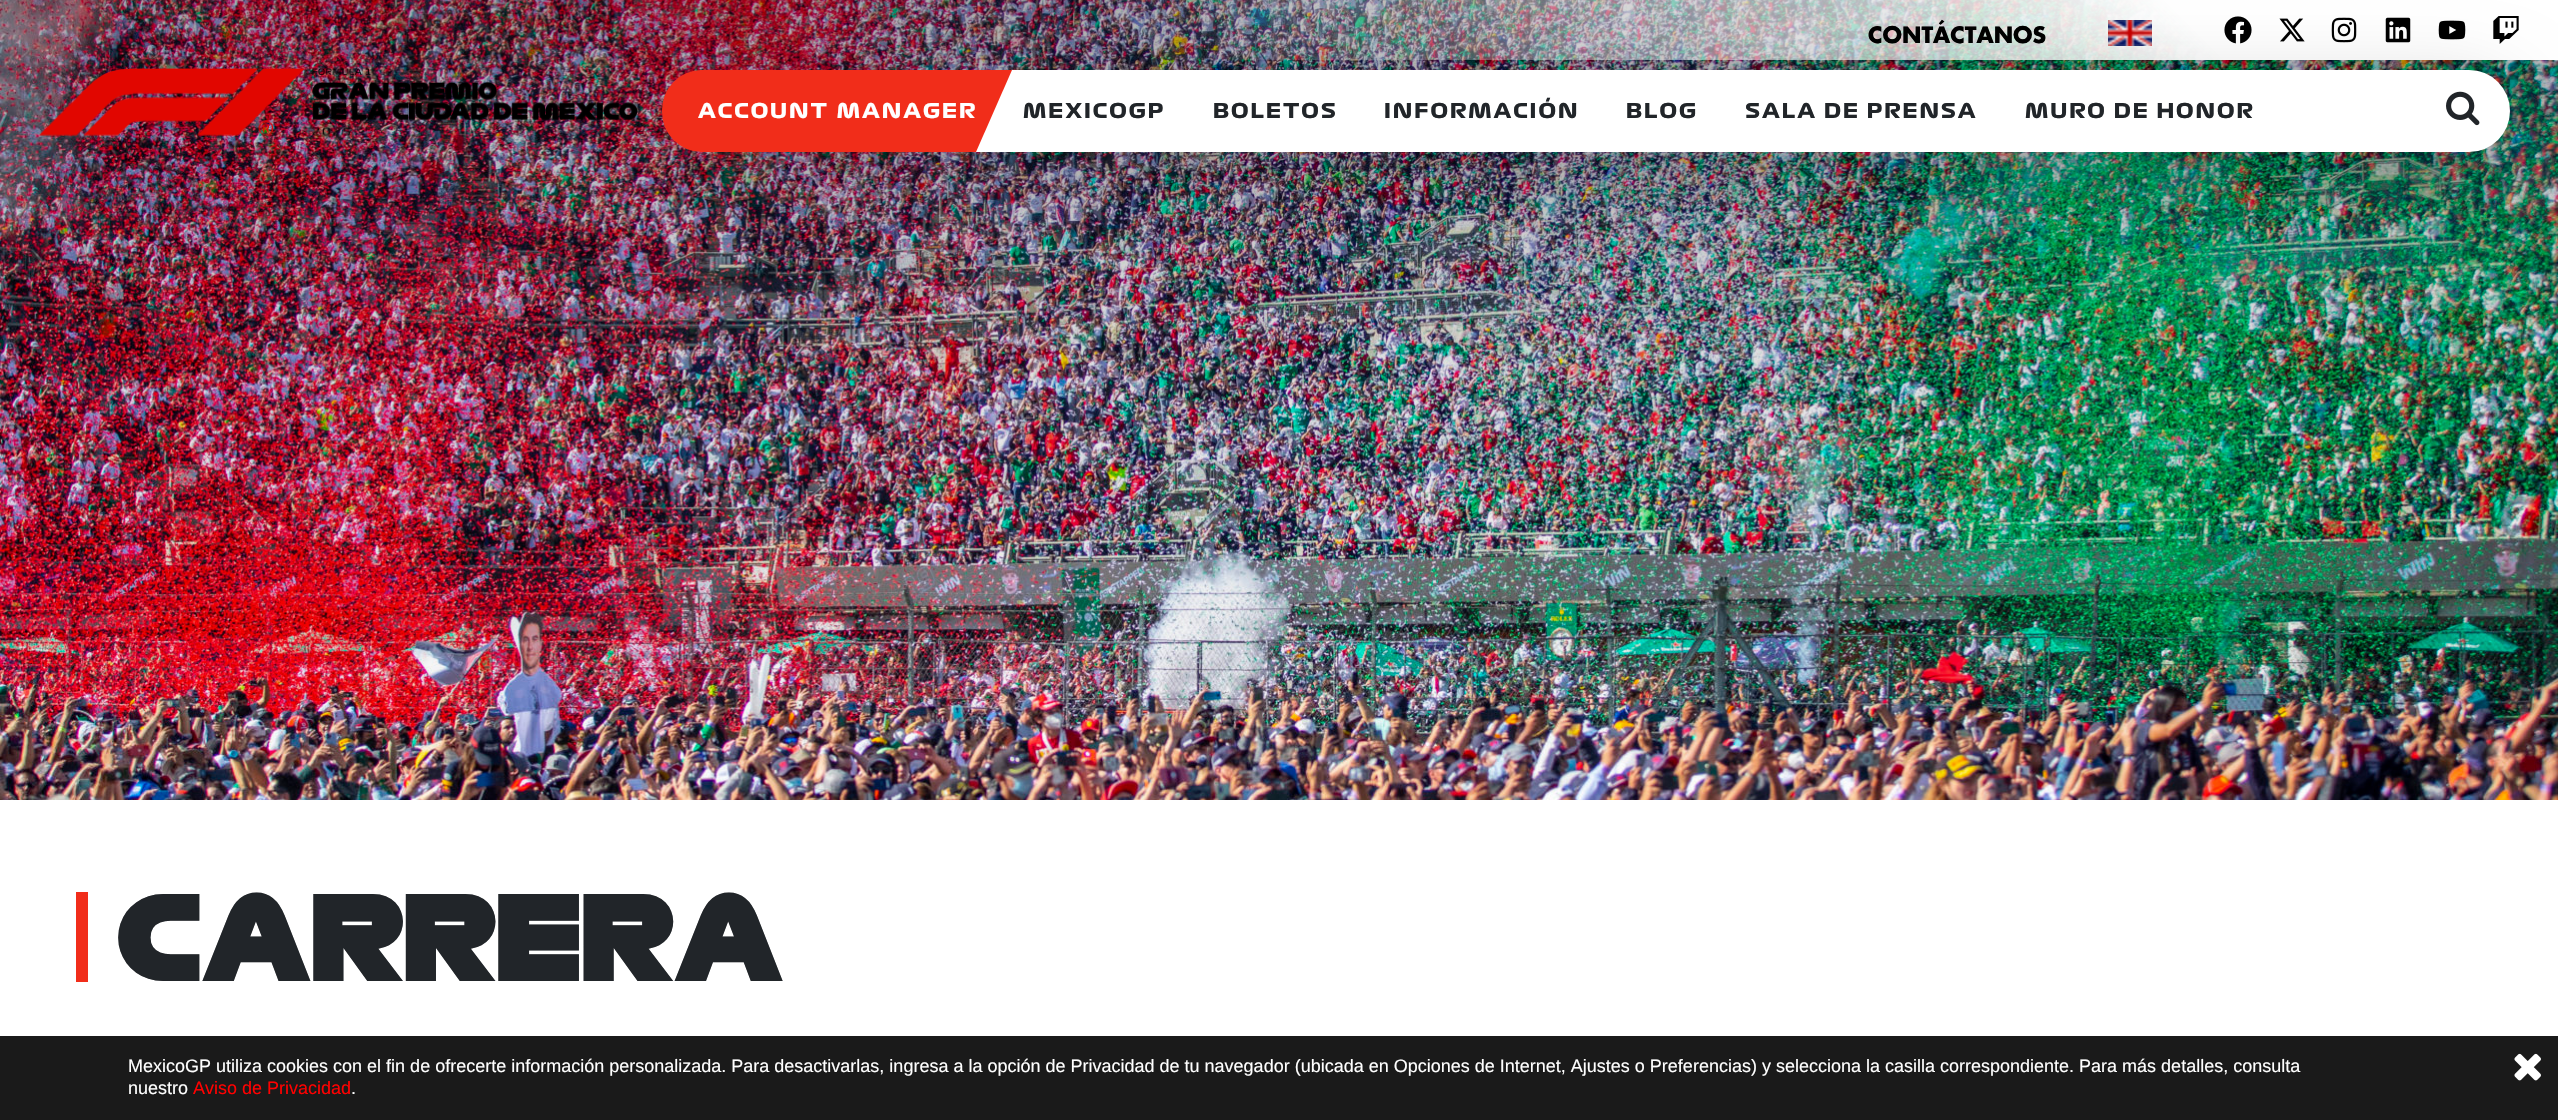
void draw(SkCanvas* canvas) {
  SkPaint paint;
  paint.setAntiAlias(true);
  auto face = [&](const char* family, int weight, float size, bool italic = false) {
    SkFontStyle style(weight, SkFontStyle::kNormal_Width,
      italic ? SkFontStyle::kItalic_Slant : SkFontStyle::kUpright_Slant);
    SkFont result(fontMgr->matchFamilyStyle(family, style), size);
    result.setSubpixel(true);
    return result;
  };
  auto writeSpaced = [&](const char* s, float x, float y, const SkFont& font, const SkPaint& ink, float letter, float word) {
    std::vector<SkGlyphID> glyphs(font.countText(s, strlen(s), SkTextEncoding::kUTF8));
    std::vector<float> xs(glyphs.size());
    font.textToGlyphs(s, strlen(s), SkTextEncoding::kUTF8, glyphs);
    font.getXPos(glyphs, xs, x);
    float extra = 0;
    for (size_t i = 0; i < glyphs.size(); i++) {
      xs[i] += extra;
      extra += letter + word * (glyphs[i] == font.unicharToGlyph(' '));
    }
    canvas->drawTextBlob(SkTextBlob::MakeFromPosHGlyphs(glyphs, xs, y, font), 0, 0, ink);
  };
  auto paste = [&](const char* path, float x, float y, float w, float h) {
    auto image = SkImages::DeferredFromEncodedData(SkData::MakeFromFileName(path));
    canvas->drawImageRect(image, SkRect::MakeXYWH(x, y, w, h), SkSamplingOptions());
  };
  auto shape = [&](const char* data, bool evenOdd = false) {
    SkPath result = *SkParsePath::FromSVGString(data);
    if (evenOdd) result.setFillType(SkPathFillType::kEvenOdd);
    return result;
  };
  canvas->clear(0xffffffff);
  paste("img/1.png", 0, 0, 2558, 800);
  paste("img/2.png", 2108, 20, 44, 26);
  paste("img/3.png", 2224, 16, 28, 28);
  paste("img/4.png", 2279, 18, 26, 24);
  paste("img/5.png", 2331, 17, 26, 26);
  paste("img/6.png", 2385, 17, 26, 26);
  paste("img/7.png", 2438, 20, 28, 20);
  paste("img/8.png", 2493, 16, 26, 28);
  paste("img/9.png", 39, 68, 599, 68);
  paint.setColor(0x33000000);
  paint.setMaskFilter(SkMaskFilter::MakeBlur(kNormal_SkBlurStyle, 40));
  canvas->drawRoundRect(SkRect::MakeXYWH(678, 90, 1832, 82), 41, 41, paint);
  paint.setMaskFilter(nullptr);
  paint.setColor(0xffffffff);
  canvas->drawRoundRect(SkRect::MakeXYWH(678, 70, 1832, 82), 41, 41, paint);
  paint.setColor(0xfff12d1a);
  canvas->drawRoundRect(SkRect::MakeXYWH(662, 70, 80, 82), 40, 40, paint);
  canvas->drawPath(shape("M700 70H1012L976 152H700Z"), paint);
  paste("img/10.png", 2446, 91, 34, 35);
  canvas->drawRect(SkRect::MakeXYWH(76, 892, 12, 90), paint);
  paint.setColor(0xff1a1a1a);
  canvas->drawRect(SkRect::MakeXYWH(0, 1036, 2558, 84), paint);
  paste("img/11.png", 2514, 1053, 27, 28);
  auto f0 = face("Futura", 700, 22);
  paint.setColor(0xff000000);
  canvas->drawString("CONTÁCTANOS", 1868, 43, f0, paint);
  auto f1 = face("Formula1", 700, 20);
  paint.setColor(0xffffffff);
  writeSpaced("ACCOUNT MANAGER", 698, 118, f1, paint, 2, 1);
  paint.setColor(0xff212529);
  {
    const struct { const char* s; float x, y; } items[] = {
      {"MEXICOGP", 1023, 118},
      {"BOLETOS", 1213, 118},
      {"INFORMACIÓN", 1384, 118},
      {"BLOG", 1626, 118},
      {"SALA DE PRENSA", 1745, 118},
      {"MURO DE HONOR", 2025, 118},
    };
    for (auto [s, x, y] : items) {
      writeSpaced(s, x, y, f1, paint, 2, 0);
    }
  }
  auto f2 = face("Formula1", 900, 116);
  canvas->drawString("CARRERA", 117, 981, f2, paint);
  auto f3 = face("Liberation Sans", 400, 18);
  paint.setColor(0xffffffff);
  canvas->drawString("MexicoGP utiliza cookies con el fin de ofrecerte información personalizada. Para desactivarlas, ingresa a la opción de Privacidad de tu navegador (ubicada en Opciones de Internet, Ajustes o Preferencias) y selecciona la casilla correspondiente. Para más detalles, consulta", 128, 1072, f3, paint);
  canvas->drawString("nuestro", 128, 1094, f3, paint);
  paint.setColor(0xffff0000);
  canvas->drawString("Aviso de Privacidad", 193, 1094, f3, paint);
  paint.setColor(0xffffffff);
  canvas->drawString(".", 351, 1094, f3, paint);
}
